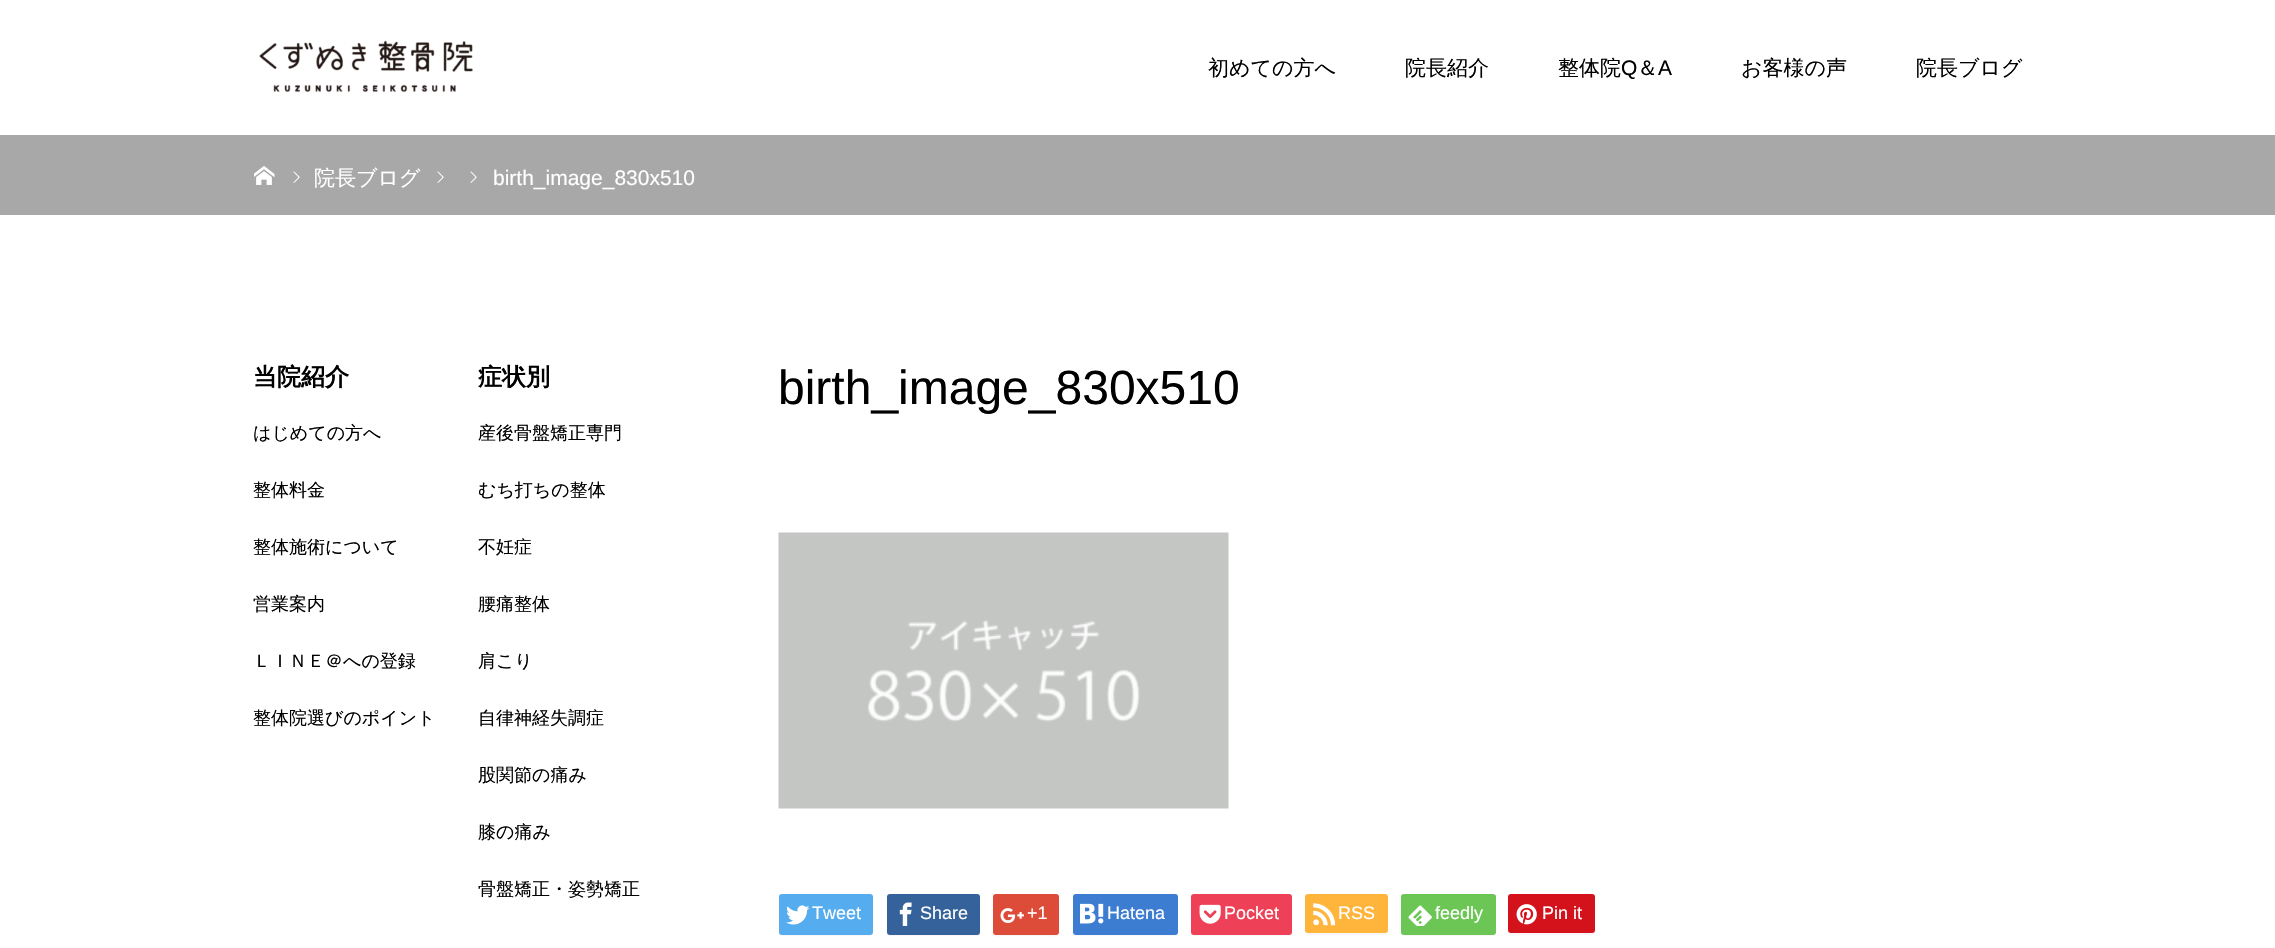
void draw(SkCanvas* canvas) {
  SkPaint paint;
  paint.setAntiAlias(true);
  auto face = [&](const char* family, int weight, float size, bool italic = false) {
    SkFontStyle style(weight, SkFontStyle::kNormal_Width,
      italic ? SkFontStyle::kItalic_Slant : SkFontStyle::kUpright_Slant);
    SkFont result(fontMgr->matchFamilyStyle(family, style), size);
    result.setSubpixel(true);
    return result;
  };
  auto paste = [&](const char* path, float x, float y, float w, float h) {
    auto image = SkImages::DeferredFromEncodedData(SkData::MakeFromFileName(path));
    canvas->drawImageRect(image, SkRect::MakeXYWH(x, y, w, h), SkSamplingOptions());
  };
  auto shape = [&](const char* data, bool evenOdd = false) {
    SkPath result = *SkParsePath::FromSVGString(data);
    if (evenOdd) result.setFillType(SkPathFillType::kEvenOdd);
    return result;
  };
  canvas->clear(0xffffffff);
  paste("img/1.png", 259, 40, 214, 53);
  paint.setColor(0xffa8a8a8);
  canvas->drawRect(SkRect::MakeXYWH(0, 135, 2275, 80), paint);
  paste("img/2.png", 254, 166, 21, 19);
  paste("img/3.png", 293, 171, 7, 12);
  paste("img/3.png", 437, 171, 7, 12);
  paste("img/3.png", 470, 171, 7, 12);
  paste("img/4.png", 778, 532, 451, 277);
  paint.setColor(0xfff7f7f7);
  canvas->drawPath(shape("M779 933C779 935 780 936 782 936H870C872 936 873 935 873 933V932L872 933L871 934H781Z"), paint);
  paint.setColor(0xff55acee);
  canvas->drawRoundRect(SkRect::MakeXYWH(779, 894, 94, 41), 3, 3, paint);
  paste("img/5.png", 786, 905, 24, 20);
  paint.setColor(0xfff7f7f7);
  canvas->drawPath(shape("M887 933C887 935 888 936 890 936H977C979 936 980 935 980 933V899V897V932C980 933 978 934 976 934H890C888 934 888 934 887 933Z"), paint);
  paint.setColor(0xff35629a);
  canvas->drawRoundRect(SkRect::MakeXYWH(887, 894, 93, 41), 3, 3, paint);
  paste("img/6.png", 899, 902, 13, 24);
  paint.setColor(0xfff7f7f7);
  canvas->drawPath(shape("M993 932C993 939 1000 936 1006 936H1046C1052 936 1059 939 1059 932C1059 933 1058 934 1056 934H996C994 934 993 933 993 932Z"), paint);
  paint.setColor(0xffdd4b39);
  canvas->drawRoundRect(SkRect::MakeXYWH(993, 894, 66, 41), 3, 3, paint);
  paste("img/7.png", 1000, 908, 24, 15);
  paint.setColor(0xfff7f7f7);
  canvas->drawPath(shape("M1073 933C1073 935 1074 936 1076 936H1175C1177 936 1178 935 1178 933V899V897V932C1178 933 1176 934 1174 934H1076C1074 934 1074 934 1073 933Z"), paint);
  paint.setColor(0xff3c7dd1);
  canvas->drawRoundRect(SkRect::MakeXYWH(1073, 894, 105, 41), 3, 3, paint);
  paste("img/8.png", 1080, 903, 24, 21);
  paint.setColor(0xfff7f7f7);
  canvas->drawPath(shape("M1191 932V933C1191 935 1192 936 1194 936H1289C1291 936 1292 935 1292 933V899V897V932C1292 933 1290 934 1288 934H1194C1192 934 1191 933 1191 932Z"), paint);
  paint.setColor(0xffee4056);
  canvas->drawRoundRect(SkRect::MakeXYWH(1191, 894, 101, 41), 3, 3, paint);
  paste("img/9.png", 1199, 904, 22, 20);
  paint.setColor(0xfff7f7f7);
  canvas->drawPath(shape("M1305 930V932C1305 934 1306 935 1308 935H1385C1387 935 1388 934 1388 932V899V897V930C1388 932 1386 933 1384 933H1308C1306 933 1305 932 1305 930Z"), paint);
  paint.setColor(0xffffb53c);
  canvas->drawRoundRect(SkRect::MakeXYWH(1305, 894, 83, 39), 3, 3, paint);
  paste("img/10.png", 1313, 903, 23, 23);
  paint.setColor(0xfff7f7f7);
  canvas->drawPath(shape("M1401 932V933C1401 935 1402 936 1404 936H1493C1495 936 1496 935 1496 933V899V897V932C1496 933 1494 934 1492 934H1404C1402 934 1401 933 1401 932Z"), paint);
  paint.setColor(0xff6cc655);
  canvas->drawRoundRect(SkRect::MakeXYWH(1401, 894, 95, 41), 3, 3, paint);
  paste("img/11.png", 1408, 905, 24, 21);
  paint.setColor(0xfff7f7f7);
  canvas->drawPath(shape("M1508 932C1508 938 1524 935 1524 935H1578C1597 935 1595 938 1595 921C1595 917 1596 900 1594 897V930C1594 932 1593 933 1592 933H1510C1509 933 1509 932 1508 932Z"), paint);
  paint.setColor(0xffd4121c);
  canvas->drawRoundRect(SkRect::MakeXYWH(1508, 894, 87, 39), 3, 3, paint);
  paste("img/12.png", 1516, 904, 21, 21);
  auto f0 = face("WenQuanYi Zen Hei", 500, 21);
  paint.setColor(0xff000000);
  {
    const struct { const char* s; float x, y; } items[] = {
      {"初めての方へ", 1208, 75},
      {"院長紹介", 1405, 75},
      {"整体院", 1558, 75},
    };
    for (auto [s, x, y] : items) {
      canvas->drawString(s, x, y, f0, paint);
    }
  }
  auto f1 = face("Liberation Sans", 400, 21);
  canvas->drawString("Q", 1621, 75, f1, paint);
  canvas->drawString("＆", 1637, 75, f0, paint);
  canvas->drawString("A", 1658, 75, f1, paint);
  canvas->drawString("お客様の声", 1741, 75, f0, paint);
  canvas->drawString("院長ブログ", 1916, 75, f0, paint);
  paint.setColor(0xffffffff);
  canvas->drawString("院長ブログ", 314, 185, f0, paint);
  canvas->drawString("birth_image_830x510", 493, 185, f1, paint);
  auto f2 = face("WenQuanYi Zen Hei", 700, 24);
  paint.setColor(0xff000000);
  canvas->drawString("当院紹介", 253, 385, f2, paint);
  auto f3 = face("WenQuanYi Zen Hei", 500, 18);
  {
    const struct { const char* s; float x, y; } items[] = {
      {"はじめての方へ", 253, 439},
      {"整体料金", 253, 496},
      {"整体施術について", 253, 553},
      {"営業案内", 253, 610},
      {"ＬＩＮＥ＠への登録", 253, 667},
      {"整体院選びのポイント", 253, 724},
    };
    for (auto [s, x, y] : items) {
      canvas->drawString(s, x, y, f3, paint);
    }
  }
  canvas->drawString("症状別", 478, 385, f2, paint);
  {
    const struct { const char* s; float x, y; } items[] = {
      {"産後骨盤矯正専門", 478, 439},
      {"むち打ちの整体", 478, 496},
      {"不妊症", 478, 553},
      {"腰痛整体", 478, 610},
      {"肩こり", 478, 667},
      {"自律神経失調症", 478, 724},
      {"股関節の痛み", 478, 781},
      {"膝の痛み", 478, 838},
      {"骨盤矯正・姿勢矯正", 478, 895},
    };
    for (auto [s, x, y] : items) {
      canvas->drawString(s, x, y, f3, paint);
    }
  }
  auto f4 = face("Liberation Sans", 400, 48);
  canvas->drawString("birth_image_830x510", 778, 404, f4, paint);
  auto f5 = face("Liberation Sans", 400, 18);
  paint.setColor(0xffffffff);
  {
    const struct { const char* s; float x, y; } items[] = {
      {"Tweet", 812, 919},
      {"Share", 920, 919},
      {"+1", 1027, 919},
      {"Hatena", 1107, 919},
      {"Pocket", 1224, 919},
      {"RSS", 1338, 919},
      {"feedly", 1435, 919},
      {"Pin it", 1542, 919},
    };
    for (auto [s, x, y] : items) {
      canvas->drawString(s, x, y, f5, paint);
    }
  }
}
